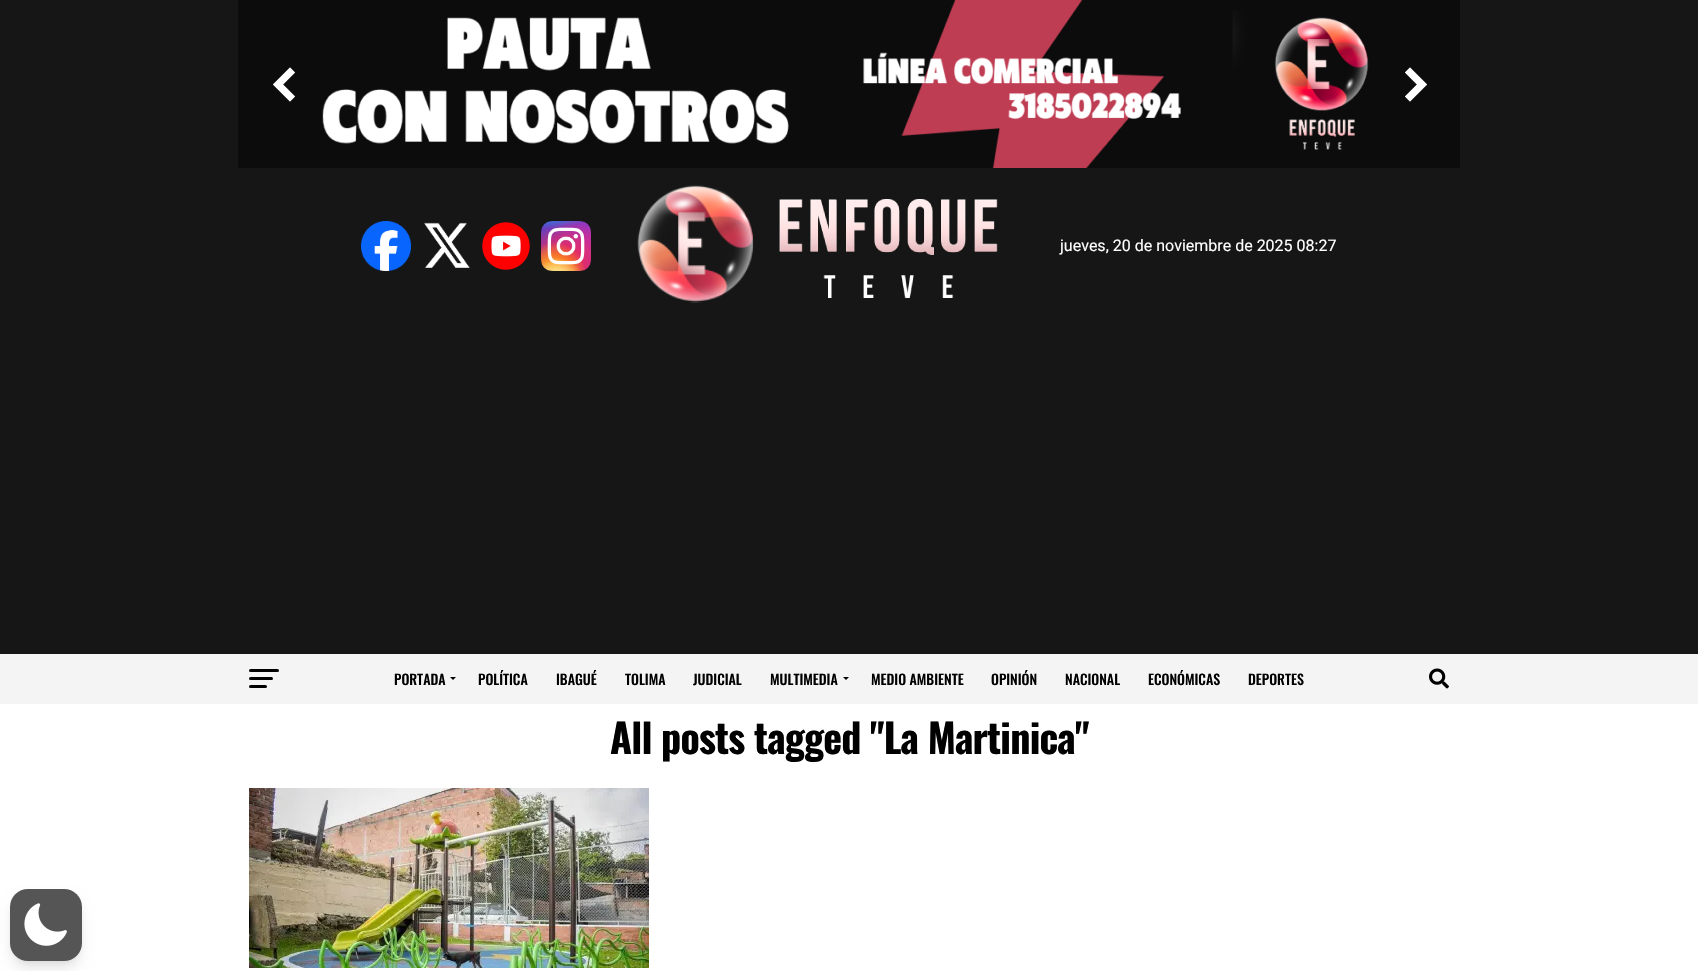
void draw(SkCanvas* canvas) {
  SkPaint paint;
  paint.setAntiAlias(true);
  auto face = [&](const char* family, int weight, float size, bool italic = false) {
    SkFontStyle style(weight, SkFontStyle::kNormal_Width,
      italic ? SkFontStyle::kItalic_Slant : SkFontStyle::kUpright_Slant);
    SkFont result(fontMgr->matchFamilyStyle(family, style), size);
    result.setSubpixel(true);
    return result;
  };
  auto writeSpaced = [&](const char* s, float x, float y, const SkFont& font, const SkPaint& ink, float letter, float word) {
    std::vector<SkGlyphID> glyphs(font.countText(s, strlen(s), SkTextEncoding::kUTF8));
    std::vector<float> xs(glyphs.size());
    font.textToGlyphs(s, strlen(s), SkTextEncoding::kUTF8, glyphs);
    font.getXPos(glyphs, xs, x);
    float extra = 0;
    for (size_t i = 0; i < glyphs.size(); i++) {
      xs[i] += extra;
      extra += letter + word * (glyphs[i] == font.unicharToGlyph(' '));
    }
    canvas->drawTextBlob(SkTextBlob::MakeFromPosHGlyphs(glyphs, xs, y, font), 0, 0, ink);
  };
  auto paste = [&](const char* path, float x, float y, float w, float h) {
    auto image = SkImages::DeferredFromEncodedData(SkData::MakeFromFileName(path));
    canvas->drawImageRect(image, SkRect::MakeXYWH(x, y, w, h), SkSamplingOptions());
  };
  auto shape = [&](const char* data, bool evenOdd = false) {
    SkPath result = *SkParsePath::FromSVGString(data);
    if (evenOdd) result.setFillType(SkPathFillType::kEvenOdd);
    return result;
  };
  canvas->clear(0xff161616);
  paste("img/1.png", 238, 0, 1222, 168);
  paste("img/2.png", 273, 67, 22, 35);
  paste("img/3.png", 1405, 67, 22, 35);
  paste("img/4.png", 361, 221, 50, 50);
  paste("img/5.png", 424, 222, 46, 46);
  paste("img/6.png", 482, 222, 48, 48);
  paste("img/7.png", 541, 221, 50, 50);
  paste("img/8.png", 637, 185, 361, 118);
  paint.setColor(0xfff4f4f4);
  canvas->drawRect(SkRect::MakeXYWH(0, 654, 1698, 50), paint);
  paint.setColor(0xff000000);
  canvas->drawRoundRect(SkRect::MakeXYWH(249, 669, 30, 3), 1.5f, 1.5f, paint);
  canvas->drawRoundRect(SkRect::MakeXYWH(249, 677, 24, 3), 1.5f, 1.5f, paint);
  canvas->drawRoundRect(SkRect::MakeXYWH(249, 685, 18, 3), 1.5f, 1.5f, paint);
  canvas->drawPath(shape("M450 677H456L453 680Z"), paint);
  canvas->drawPath(shape("M843 677H849L846 680Z"), paint);
  paste("img/9.png", 1429, 668, 20, 21);
  paint.setColor(0xffffffff);
  canvas->drawRect(SkRect::MakeXYWH(0, 704, 1698, 267), paint);
  paste("img/10.png", 249, 788, 400, 180);
  paint.setColor(0x1a000000);
  paint.setMaskFilter(SkMaskFilter::MakeBlur(kNormal_SkBlurStyle, 3));
  canvas->drawRoundRect(SkRect::MakeXYWH(14, 897, 64, 64), 14, 14, paint);
  paint.setMaskFilter(nullptr);
  paint.setMaskFilter(SkMaskFilter::MakeBlur(kNormal_SkBlurStyle, 7.5f));
  canvas->drawRoundRect(SkRect::MakeXYWH(13, 902, 66, 66), 15, 15, paint);
  paint.setMaskFilter(nullptr);
  paint.setColor(0xff555555);
  canvas->drawRoundRect(SkRect::MakeXYWH(10, 889, 72, 72), 18, 18, paint);
  paste("img/11.png", 24, 903, 43, 43);
  auto f0 = face("Roboto", 400, 16);
  paint.setColor(0xffffffff);
  canvas->drawString("jueves, 20 de noviembre de 2025 08:27", 1060, 251, f0, paint);
  auto f1 = face("Oswald", 500, 14);
  paint.setColor(0xff000000);
  {
    const struct { const char* s; float x, y; } items[] = {
      {"PORTADA", 394, 685},
      {"POLÍTICA", 478, 685},
      {"IBAGUÉ", 556, 685},
      {"TOLIMA", 625, 685},
      {"JUDICIAL", 693, 685},
      {"MULTIMEDIA", 770, 685},
      {"MEDIO AMBIENTE", 871, 685},
      {"OPINIÓN", 991, 685},
      {"NACIONAL", 1065, 685},
      {"ECONÓMICAS", 1148, 685},
      {"DEPORTES", 1248, 685},
    };
    for (auto [s, x, y] : items) {
      canvas->drawString(s, x, y, f1, paint);
    }
  }
  auto f2 = face("Oswald", 700, 40);
  writeSpaced("All posts tagged \"La Martinica\"", 610, 754, f2, paint, -0.8f, 0);
}
